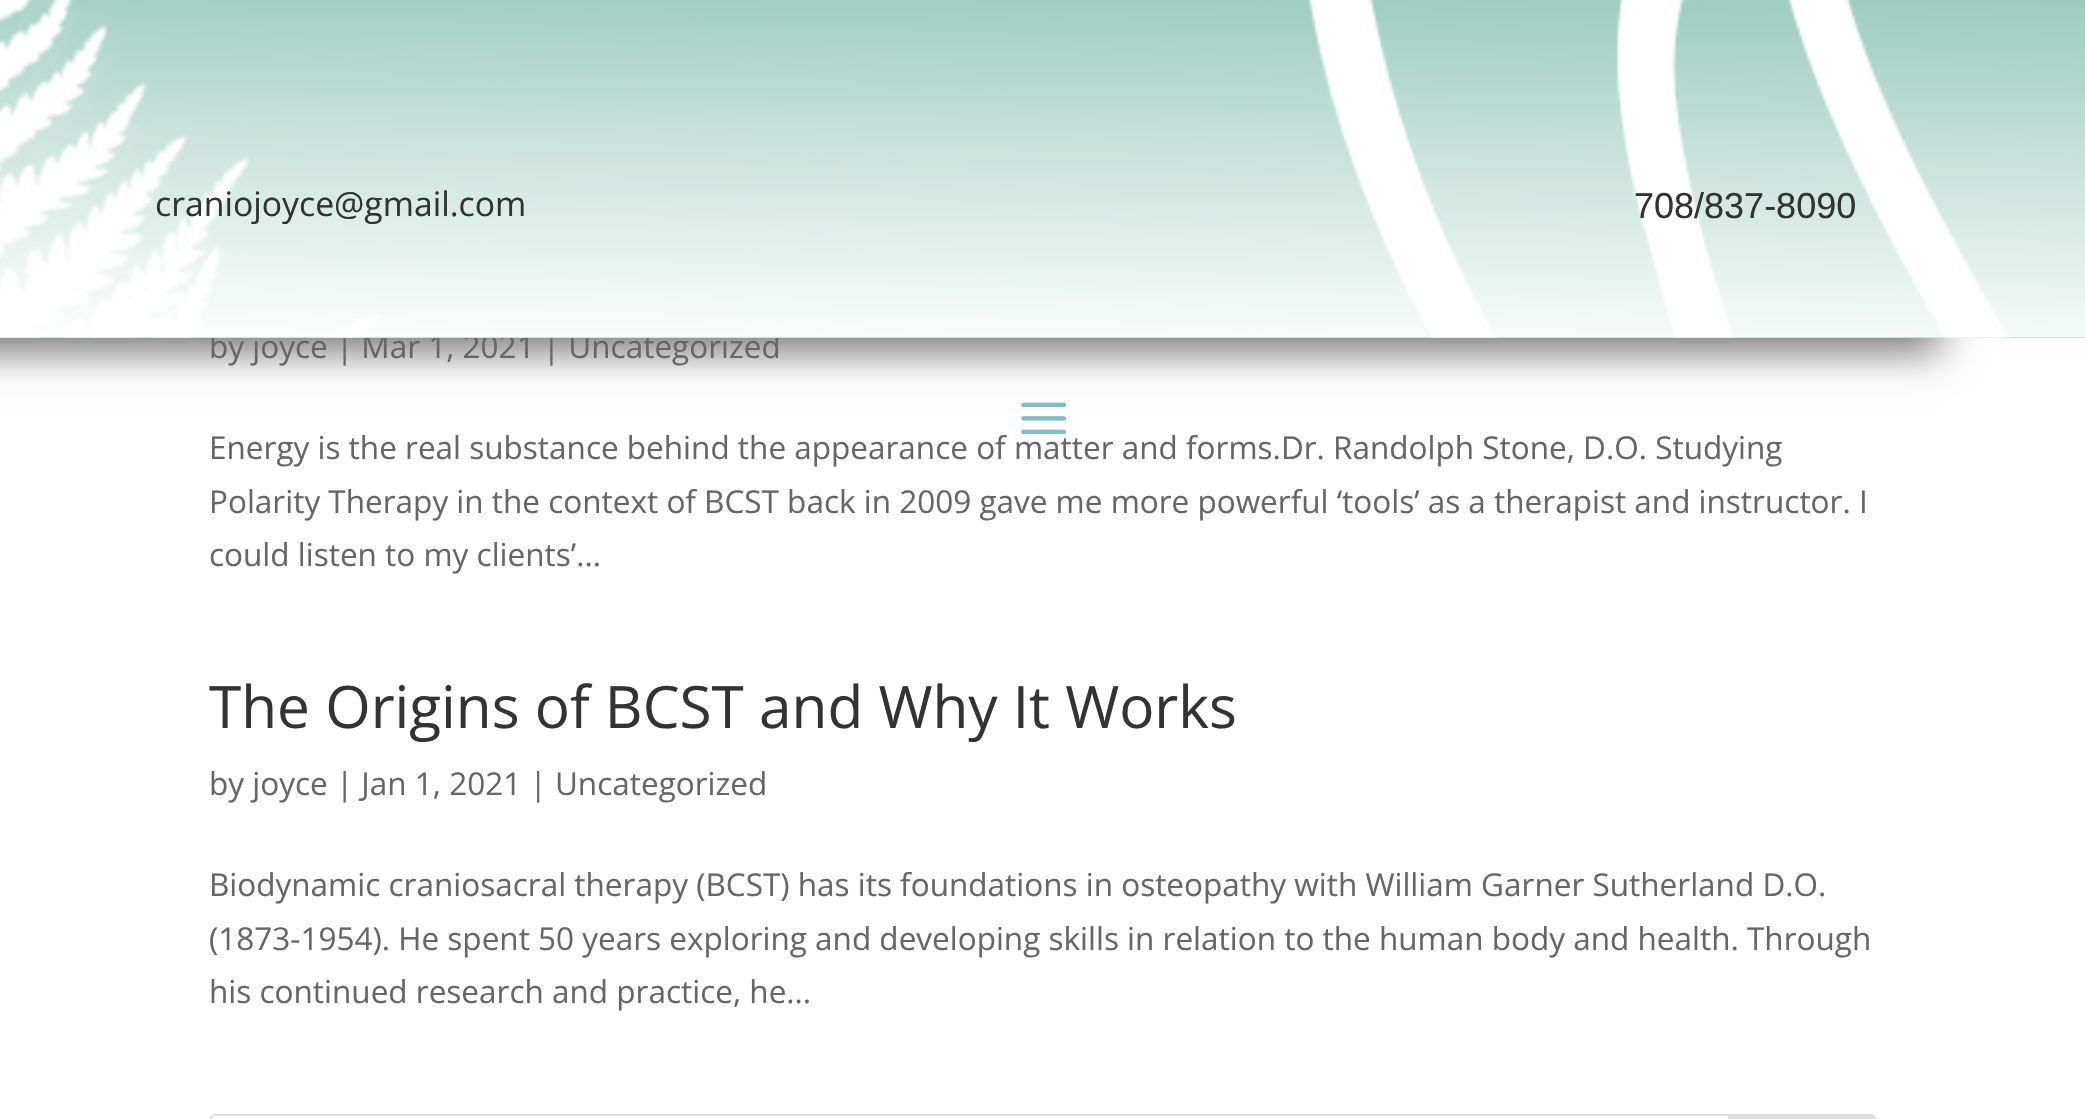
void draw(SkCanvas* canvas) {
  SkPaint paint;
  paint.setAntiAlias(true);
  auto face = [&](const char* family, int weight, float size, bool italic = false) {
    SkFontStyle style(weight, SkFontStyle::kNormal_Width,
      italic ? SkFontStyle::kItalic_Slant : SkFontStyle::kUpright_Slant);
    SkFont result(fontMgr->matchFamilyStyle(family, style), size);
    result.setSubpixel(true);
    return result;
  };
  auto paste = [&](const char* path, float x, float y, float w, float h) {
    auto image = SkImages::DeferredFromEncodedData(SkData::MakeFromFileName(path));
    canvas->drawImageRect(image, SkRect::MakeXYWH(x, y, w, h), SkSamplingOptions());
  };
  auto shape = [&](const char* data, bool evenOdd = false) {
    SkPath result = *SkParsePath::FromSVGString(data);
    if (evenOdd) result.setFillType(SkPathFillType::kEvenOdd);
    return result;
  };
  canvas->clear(0xffffffff);
  paint.setColor(0xff727272);
  paint.setMaskFilter(SkMaskFilter::MakeBlur(kNormal_SkBlurStyle, 20));
  canvas->drawRect(SkRect::MakeXYWH(-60, 41, 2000, 310), paint);
  paint.setMaskFilter(nullptr);
  paint.setStroke(true);
  paint.setStrokeWidth(2);
  paint.setColor(0xffdddddd);
  canvas->drawRoundRect(SkRect::MakeXYWH(210, 1115, 1666, 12), 6, 6, paint);
  paint.setStroke(false);
  canvas->drawPath(shape("M1729 1115H1870C1873.5 1115 1876 1117.5 1876 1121C1876 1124.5 1873.5 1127 1870 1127H1729Z"), paint);
  paint.setStroke(true);
  canvas->drawPath(shape("M1729 1115H1870C1873.5 1115 1876 1117.5 1876 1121C1876 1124.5 1873.5 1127 1870 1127H1729Z"), paint);
  auto f0 = face("Open Sans", 400, 31.5f);
  paint.setStroke(false);
  paint.setColor(0xff666666);
  canvas->drawString("by joyce | Mar 1, 2021 | Uncategorized", 209, 358, f0, paint);
  paint.setColor(0xff9dccbe);
  canvas->drawRect(SkRect::MakeXYWH(0, 337, 2085, 1), paint);
  paste("img/1.png", 0, 0, 2085, 338);
  auto f1 = face("Liberation Sans", 400, 36);
  paint.setColor(0xff333333);
  canvas->drawString("708/837-8090", 1634, 218, f1, paint);
  auto f2 = face("Open Sans", 400, 33.75f);
  canvas->drawString("craniojoyce@gmail.com", 155, 216, f2, paint);
  paint.setColor(0xff666666);
  canvas->drawString("Energy is the real substance behind the appearance of matter and forms.Dr. Randolph Stone, D.O. Studying", 209, 459, f0, paint);
  paste("img/2.png", 1021, 402, 46, 33);
  canvas->drawString("Polarity Therapy in the context of BCST back in 2009 gave me more powerful ‘tools’ as a therapist and instructor. I", 209, 513, f0, paint);
  canvas->drawString("could listen to my clients’...", 209, 566, f0, paint);
  auto f3 = face("Open Sans", 400, 58.5f);
  paint.setColor(0xff333333);
  canvas->drawString("The Origins of BCST and Why It Works", 209, 728, f3, paint);
  paint.setColor(0xff666666);
  {
    const struct { const char* s; float x, y; } items[] = {
      {"by joyce | Jan 1, 2021 | Uncategorized", 209, 795},
      {"Biodynamic craniosacral therapy (BCST) has its foundations in osteopathy with William Garner Sutherland D.O.", 209, 896},
      {"(1873-1954). He spent 50 years exploring and developing skills in relation to the human body and health. Through", 209, 950},
      {"his continued research and practice, he...", 209, 1003},
    };
    for (auto [s, x, y] : items) {
      canvas->drawString(s, x, y, f0, paint);
    }
  }
}
